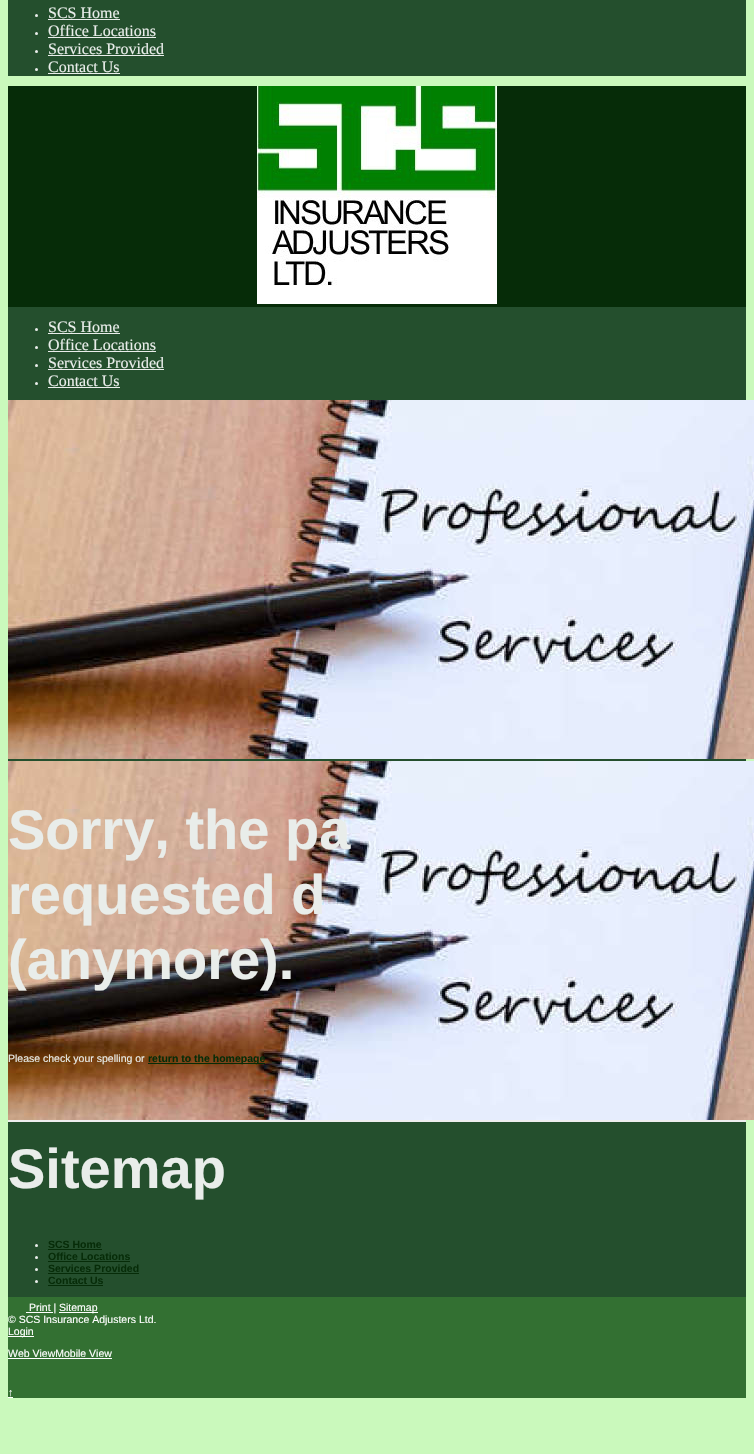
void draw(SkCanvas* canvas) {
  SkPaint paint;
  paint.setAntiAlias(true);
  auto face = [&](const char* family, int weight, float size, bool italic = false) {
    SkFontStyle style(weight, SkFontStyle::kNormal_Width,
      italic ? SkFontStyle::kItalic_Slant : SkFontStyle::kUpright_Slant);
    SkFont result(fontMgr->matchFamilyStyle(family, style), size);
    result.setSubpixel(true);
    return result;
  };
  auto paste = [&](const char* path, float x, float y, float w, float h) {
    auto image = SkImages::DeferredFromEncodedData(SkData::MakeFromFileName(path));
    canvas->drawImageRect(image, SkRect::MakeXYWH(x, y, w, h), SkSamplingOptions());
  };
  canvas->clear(0xffcaf9bc);
  paint.setColor(0xff244f2d);
  canvas->drawRect(SkRect::MakeXYWH(8, 0, 738, 76), paint);
  paint.setColor(0xffe9edea);
  canvas->drawCircle(36.5f, 15.5f, 1.5f, paint);
  canvas->drawRect(SkRect::MakeXYWH(48, 19, 72, 1), paint);
  canvas->drawCircle(36.5f, 33.5f, 1.5f, paint);
  canvas->drawRect(SkRect::MakeXYWH(48, 37, 108, 1), paint);
  canvas->drawCircle(36.5f, 51.5f, 1.5f, paint);
  canvas->drawRect(SkRect::MakeXYWH(48, 55, 116, 1), paint);
  canvas->drawCircle(36.5f, 69.5f, 1.5f, paint);
  {
    const struct { float x, y, w, h; SkColor color; } items[] = {
      {48, 73, 72, 1, 0xffe9edea},
      {8, 307, 738, 990, 0xff244f2d},
      {8, 86, 738, 221, 0xff062c08},
    };
    for (auto [x, y, w, h, color] : items) {
      paint.setColor(color);
      canvas->drawRect(SkRect::MakeXYWH(x, y, w, h), paint);
    }
  }
  paste("img/1.png", 257, 86, 240, 218);
  paint.setColor(0xffe9edea);
  canvas->drawCircle(36.5f, 329.5f, 1.5f, paint);
  canvas->drawRect(SkRect::MakeXYWH(48, 333, 72, 1), paint);
  canvas->drawCircle(36.5f, 347.5f, 1.5f, paint);
  canvas->drawRect(SkRect::MakeXYWH(48, 351, 108, 1), paint);
  canvas->drawCircle(36.5f, 365.5f, 1.5f, paint);
  canvas->drawRect(SkRect::MakeXYWH(48, 369, 116, 1), paint);
  canvas->drawCircle(36.5f, 383.5f, 1.5f, paint);
  canvas->drawRect(SkRect::MakeXYWH(48, 387, 72, 1), paint);
  paste("img/2.png", 8, 400, 746, 359);
  paint.setColor(0xffeeeeee);
  canvas->drawRect(SkRect::MakeXYWH(8, 1120, 738, 2), paint);
  paste("img/2.png", 8, 761, 746, 359);
  paint.setColor(0xff062c08);
  canvas->drawRect(SkRect::MakeXYWH(148, 1063, 117, 1), paint);
  paint.setColor(0xffe9edea);
  canvas->drawCircle(36.5f, 1245.5f, 1.5f, paint);
  paint.setColor(0xff062c08);
  canvas->drawRect(SkRect::MakeXYWH(48, 1249, 54, 1), paint);
  paint.setColor(0xffe9edea);
  canvas->drawCircle(36.5f, 1257.5f, 1.5f, paint);
  paint.setColor(0xff062c08);
  canvas->drawRect(SkRect::MakeXYWH(48, 1261, 82, 1), paint);
  paint.setColor(0xffe9edea);
  canvas->drawCircle(36.5f, 1269.5f, 1.5f, paint);
  paint.setColor(0xff062c08);
  canvas->drawRect(SkRect::MakeXYWH(48, 1273, 91, 1), paint);
  paint.setColor(0xffe9edea);
  canvas->drawCircle(36.5f, 1281.5f, 1.5f, paint);
  {
    const struct { float x, y, w, h; SkColor color; } items[] = {
      {48, 1285, 55, 1, 0xff062c08},
      {8, 1297, 738, 101, 0xff337032},
      {26, 1312, 27, 1, 0xffffffff},
      {59, 1312, 39, 1, 0xffffffff},
      {8, 1336, 26, 1, 0xffffffff},
      {8, 1358, 104, 1, 0xffffffff},
      {8, 1397, 5, 1, 0xffffffff},
    };
    for (auto [x, y, w, h, color] : items) {
      paint.setColor(color);
      canvas->drawRect(SkRect::MakeXYWH(x, y, w, h), paint);
    }
  }
  auto f0 = face("Liberation Serif", 400, 16);
  paint.setColor(0xffe9edea);
  {
    const struct { const char* s; float x, y; } items[] = {
      {"SCS Home", 48, 18},
      {"Office Locations", 48, 36},
      {"Services Provided", 48, 54},
      {"Contact Us", 48, 72},
      {"SCS Home", 48, 332},
      {"Office Locations", 48, 350},
      {"Services Provided", 48, 368},
      {"Contact Us", 48, 386},
    };
    for (auto [s, x, y] : items) {
      canvas->drawString(s, x, y, f0, paint);
    }
  }
  auto f1 = face("Liberation Sans", 700, 56);
  {
    const struct { const char* s; float x, y; } items[] = {
      {"Sorry, the pa", 8, 849},
      {"requested d", 8, 914},
      {"(anymore).", 8, 979},
    };
    for (auto [s, x, y] : items) {
      canvas->drawString(s, x, y, f1, paint);
    }
  }
  auto f2 = face("Liberation Sans", 400, 10.5f);
  canvas->drawString("Please check your spelling or", 8, 1062, f2, paint);
  auto f3 = face("Liberation Sans", 700, 10.5f);
  paint.setColor(0xff062c08);
  canvas->drawString("return to the homepage", 148, 1062, f3, paint);
  paint.setColor(0xffe9edea);
  canvas->drawString("Sitemap", 8, 1188, f1, paint);
  paint.setColor(0xff062c08);
  {
    const struct { const char* s; float x, y; } items[] = {
      {"SCS Home", 48, 1248},
      {"Office Locations", 48, 1260},
      {"Services Provided", 48, 1272},
      {"Contact Us", 48, 1284},
    };
    for (auto [s, x, y] : items) {
      canvas->drawString(s, x, y, f3, paint);
    }
  }
  paint.setColor(0xffffffff);
  {
    const struct { const char* s; float x, y; } items[] = {
      {"Print |", 29, 1311},
      {"Sitemap", 59, 1311},
      {"© SCS Insurance Adjusters Ltd.", 8, 1323},
      {"Login", 8, 1335},
      {"Web ViewMobile View", 8, 1357},
      {"↑", 8, 1396},
    };
    for (auto [s, x, y] : items) {
      canvas->drawString(s, x, y, f2, paint);
    }
  }
}
